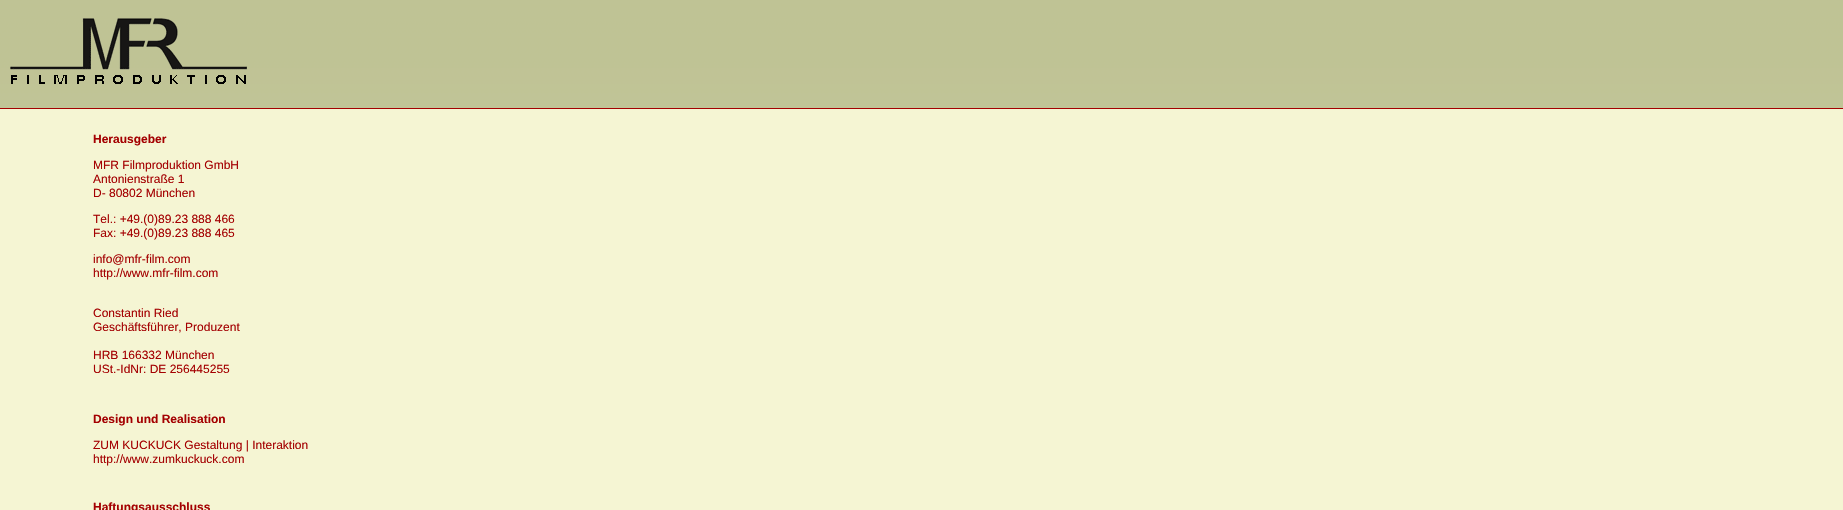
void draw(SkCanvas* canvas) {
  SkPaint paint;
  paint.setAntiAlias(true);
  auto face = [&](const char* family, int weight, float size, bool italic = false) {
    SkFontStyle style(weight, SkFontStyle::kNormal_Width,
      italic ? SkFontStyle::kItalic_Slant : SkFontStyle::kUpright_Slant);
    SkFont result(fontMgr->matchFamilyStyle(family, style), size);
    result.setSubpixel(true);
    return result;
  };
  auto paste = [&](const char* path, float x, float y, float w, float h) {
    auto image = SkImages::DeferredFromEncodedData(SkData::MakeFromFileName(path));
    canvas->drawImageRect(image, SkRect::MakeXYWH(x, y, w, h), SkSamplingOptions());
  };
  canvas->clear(0xffffffff);
  paste("img/1.png", 0, 0, 1843, 108);
  paste("img/2.png", 10, 18, 237, 66);
  paint.setColor(0xfff5f5d3);
  canvas->drawRect(SkRect::MakeXYWH(0, 109, 1843, 401), paint);
  paint.setColor(0xffa40001);
  canvas->drawRect(SkRect::MakeXYWH(0, 108, 1843, 1), paint);
  auto f0 = face("Liberation Sans", 700, 12);
  canvas->drawString("Herausgeber", 93, 143, f0, paint);
  auto f1 = face("Liberation Sans", 400, 12);
  {
    const struct { const char* s; float x, y; } items[] = {
      {"MFR Filmproduktion GmbH", 93, 169},
      {"Antonienstraße 1", 93, 183},
      {"D- 80802 München", 93, 197},
      {"Tel.: +49.(0)89.23 888 466", 93, 223},
      {"Fax: +49.(0)89.23 888 465", 93, 237},
      {"info@mfr-film.com", 93, 263},
      {"http://www.mfr-film.com", 93, 277},
      {"Constantin Ried", 93, 317},
      {"Geschäftsführer, Produzent", 93, 331},
      {"HRB 166332 München", 93, 359},
      {"USt.-IdNr: DE 256445255", 93, 373},
    };
    for (auto [s, x, y] : items) {
      canvas->drawString(s, x, y, f1, paint);
    }
  }
  canvas->drawString("Design und Realisation", 93, 423, f0, paint);
  canvas->drawString("ZUM KUCKUCK Gestaltung | Interaktion", 93, 449, f1, paint);
  canvas->drawString("http://www.zumkuckuck.com", 93, 463, f1, paint);
  canvas->drawString("Haftungsausschluss", 93, 511, f0, paint);
}
